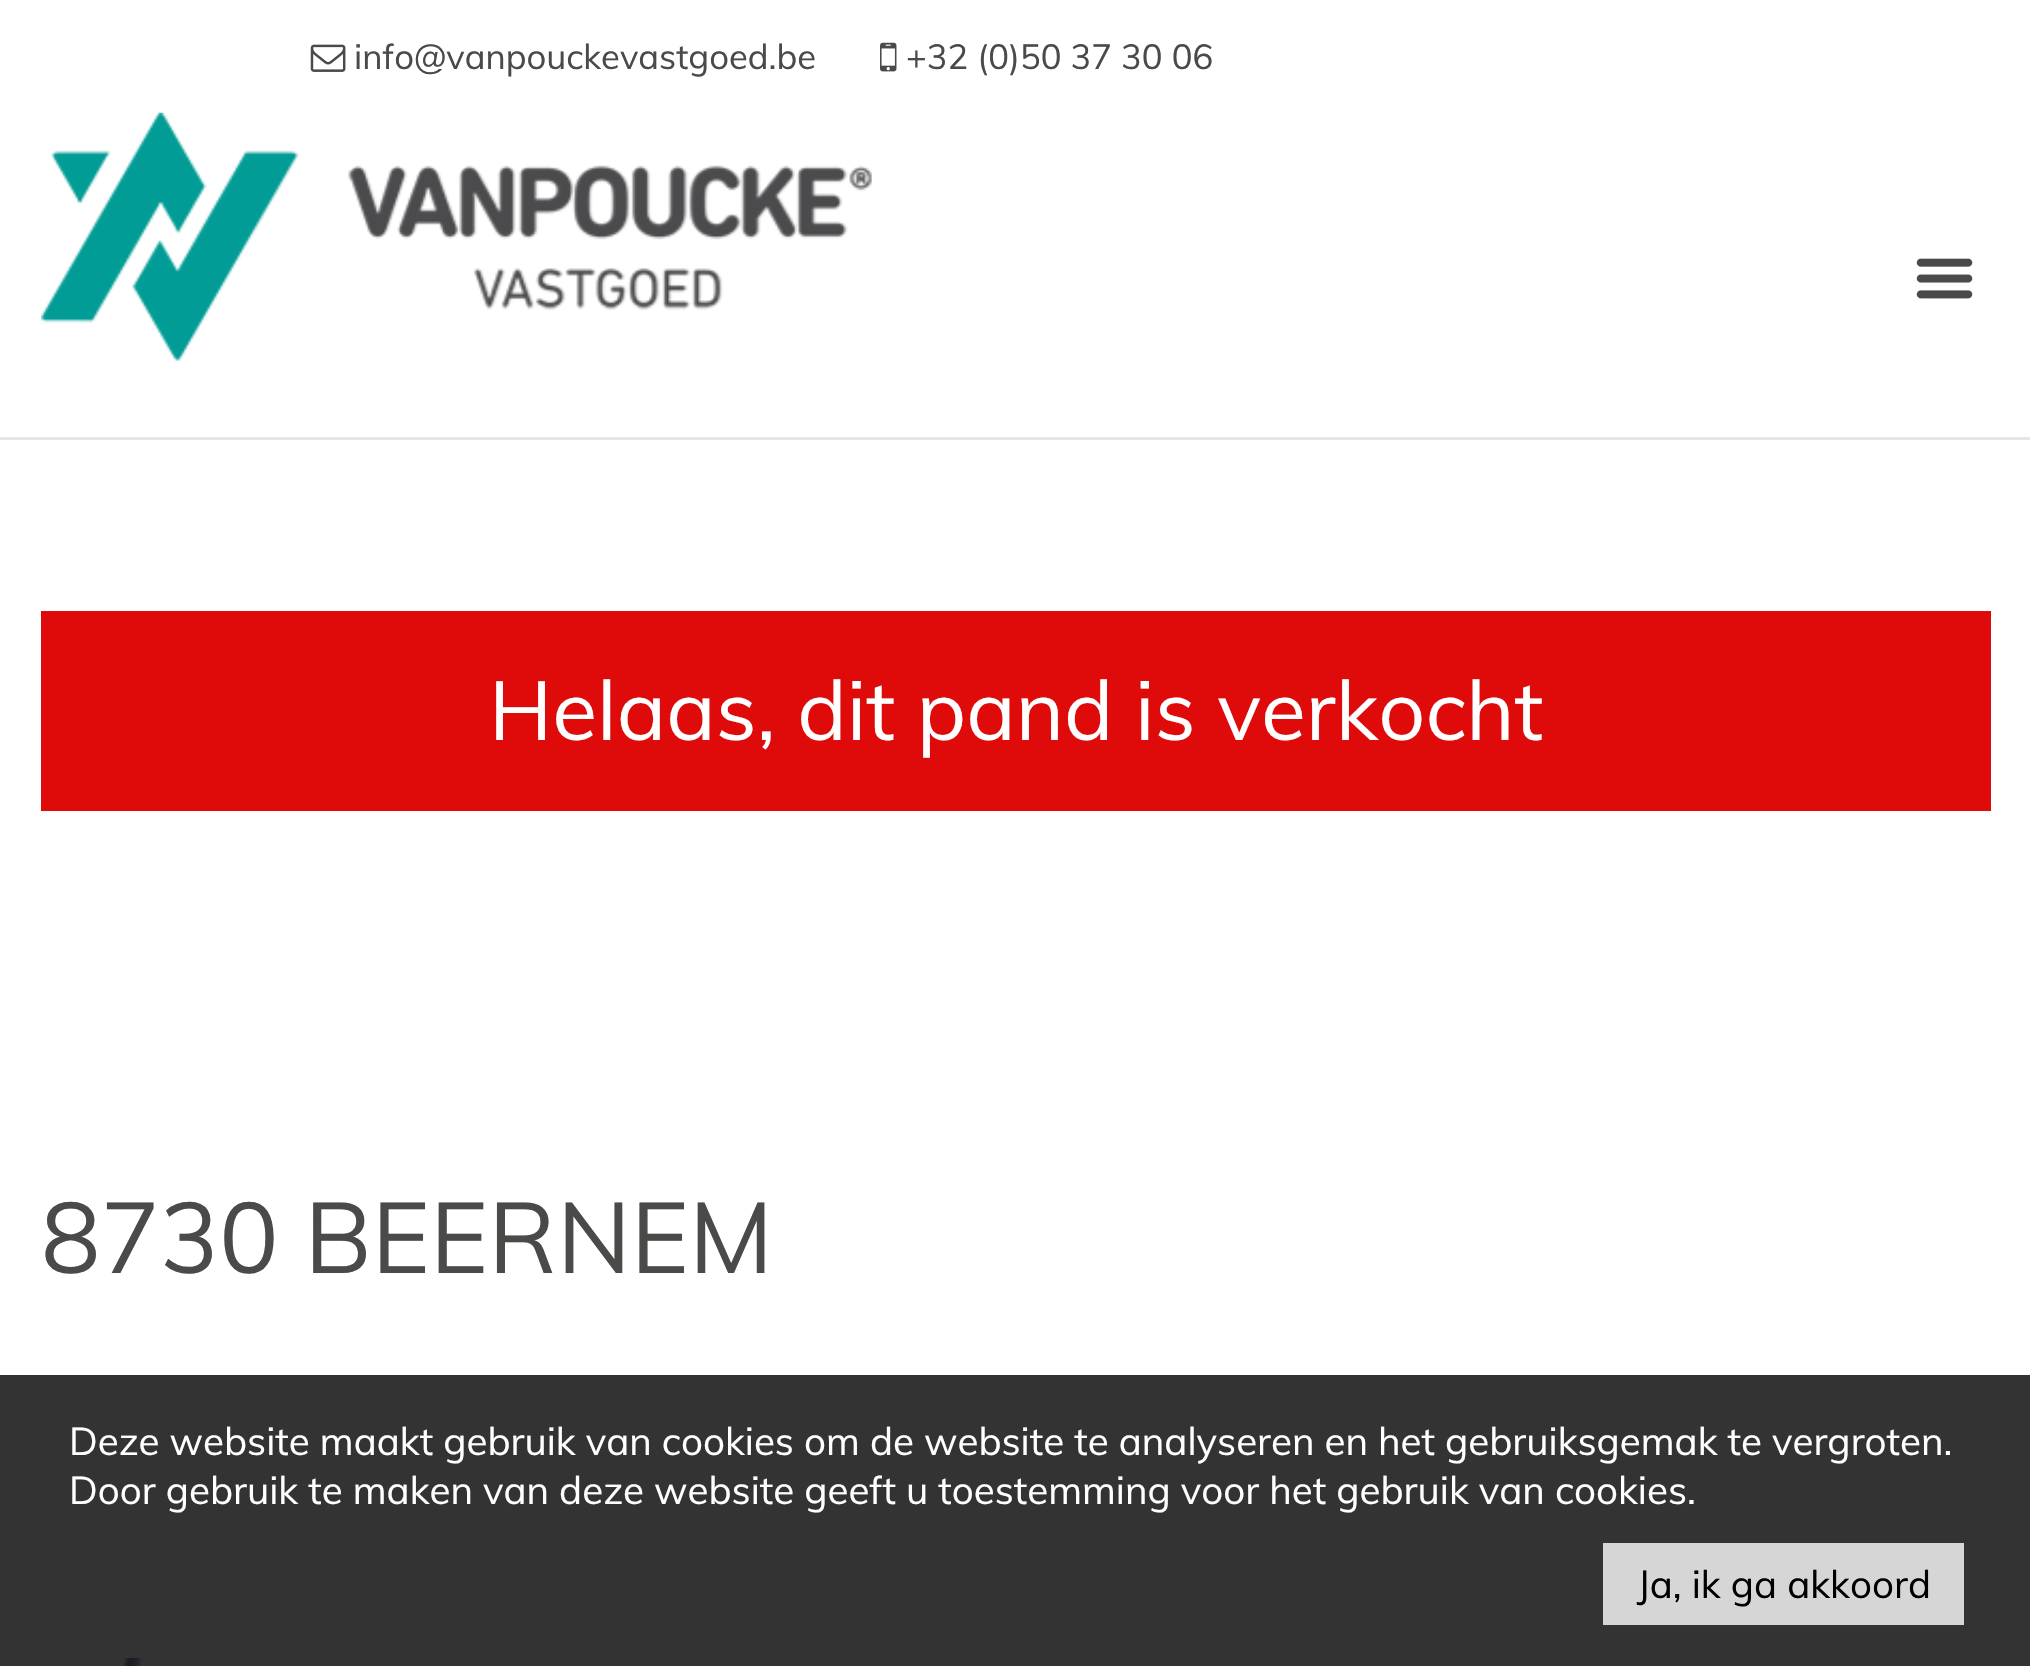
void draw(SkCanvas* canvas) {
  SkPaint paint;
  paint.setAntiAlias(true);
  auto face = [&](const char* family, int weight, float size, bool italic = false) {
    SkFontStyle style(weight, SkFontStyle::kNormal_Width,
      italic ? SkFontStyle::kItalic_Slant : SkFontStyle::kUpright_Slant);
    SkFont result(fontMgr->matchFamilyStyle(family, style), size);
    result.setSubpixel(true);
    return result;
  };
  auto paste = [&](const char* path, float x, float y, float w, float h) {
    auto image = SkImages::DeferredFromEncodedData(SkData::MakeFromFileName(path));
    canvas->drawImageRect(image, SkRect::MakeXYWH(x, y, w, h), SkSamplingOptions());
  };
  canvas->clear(0xffffffff);
  paste("img/1.png", 310, 44, 36, 28);
  paste("img/2.png", 880, 42, 17, 30);
  paint.setColor(0xffe5e5e5);
  canvas->drawRect(SkRect::MakeXYWH(0, 437, 2030, 3), paint);
  paste("img/3.png", 41, 112, 831, 249);
  paste("img/4.png", 1916, 258, 57, 41);
  paint.setColor(0xffdf0b0b);
  canvas->drawRect(SkRect::MakeXYWH(41, 611, 1950, 200), paint);
  paste("img/5.png", 41, 1658, 1650, 8);
  paint.setColor(0xcc000000);
  canvas->drawRect(SkRect::MakeXYWH(0, 1375, 2030, 291), paint);
  paint.setColor(0xffd6d6d6);
  canvas->drawRect(SkRect::MakeXYWH(1603, 1543, 361, 82), paint);
  auto f0 = face("Muli", 400, 34.6f);
  paint.setColor(0xff4a4a49);
  canvas->drawString("info@vanpouckevastgoed.be", 354, 69, f0, paint);
  canvas->drawString("+32 (0)50 37 30 06", 906, 69, f0, paint);
  auto f1 = face("Muli", 400, 82.5f);
  paint.setColor(0xffffffff);
  canvas->drawString("Helaas, dit pand is verkocht", 489, 740, f1, paint);
  auto f2 = face("Muli", 400, 99);
  paint.setColor(0xff4a4a49);
  canvas->drawString("8730 BEERNEM", 41, 1273, f2, paint);
  auto f3 = face("Muli", 400, 38.5f);
  paint.setColor(0xffffffff);
  canvas->drawString("Deze website maakt gebruik van cookies om de website te analyseren en het gebruiksgemak te vergroten.", 69, 1455, f3, paint);
  canvas->drawString("Door gebruik te maken van deze website geeft u toestemming voor het gebruik van cookies.", 69, 1504, f3, paint);
  paint.setColor(0xff000000);
  canvas->drawString("Ja, ik ga akkoord", 1637, 1598, f3, paint);
}
